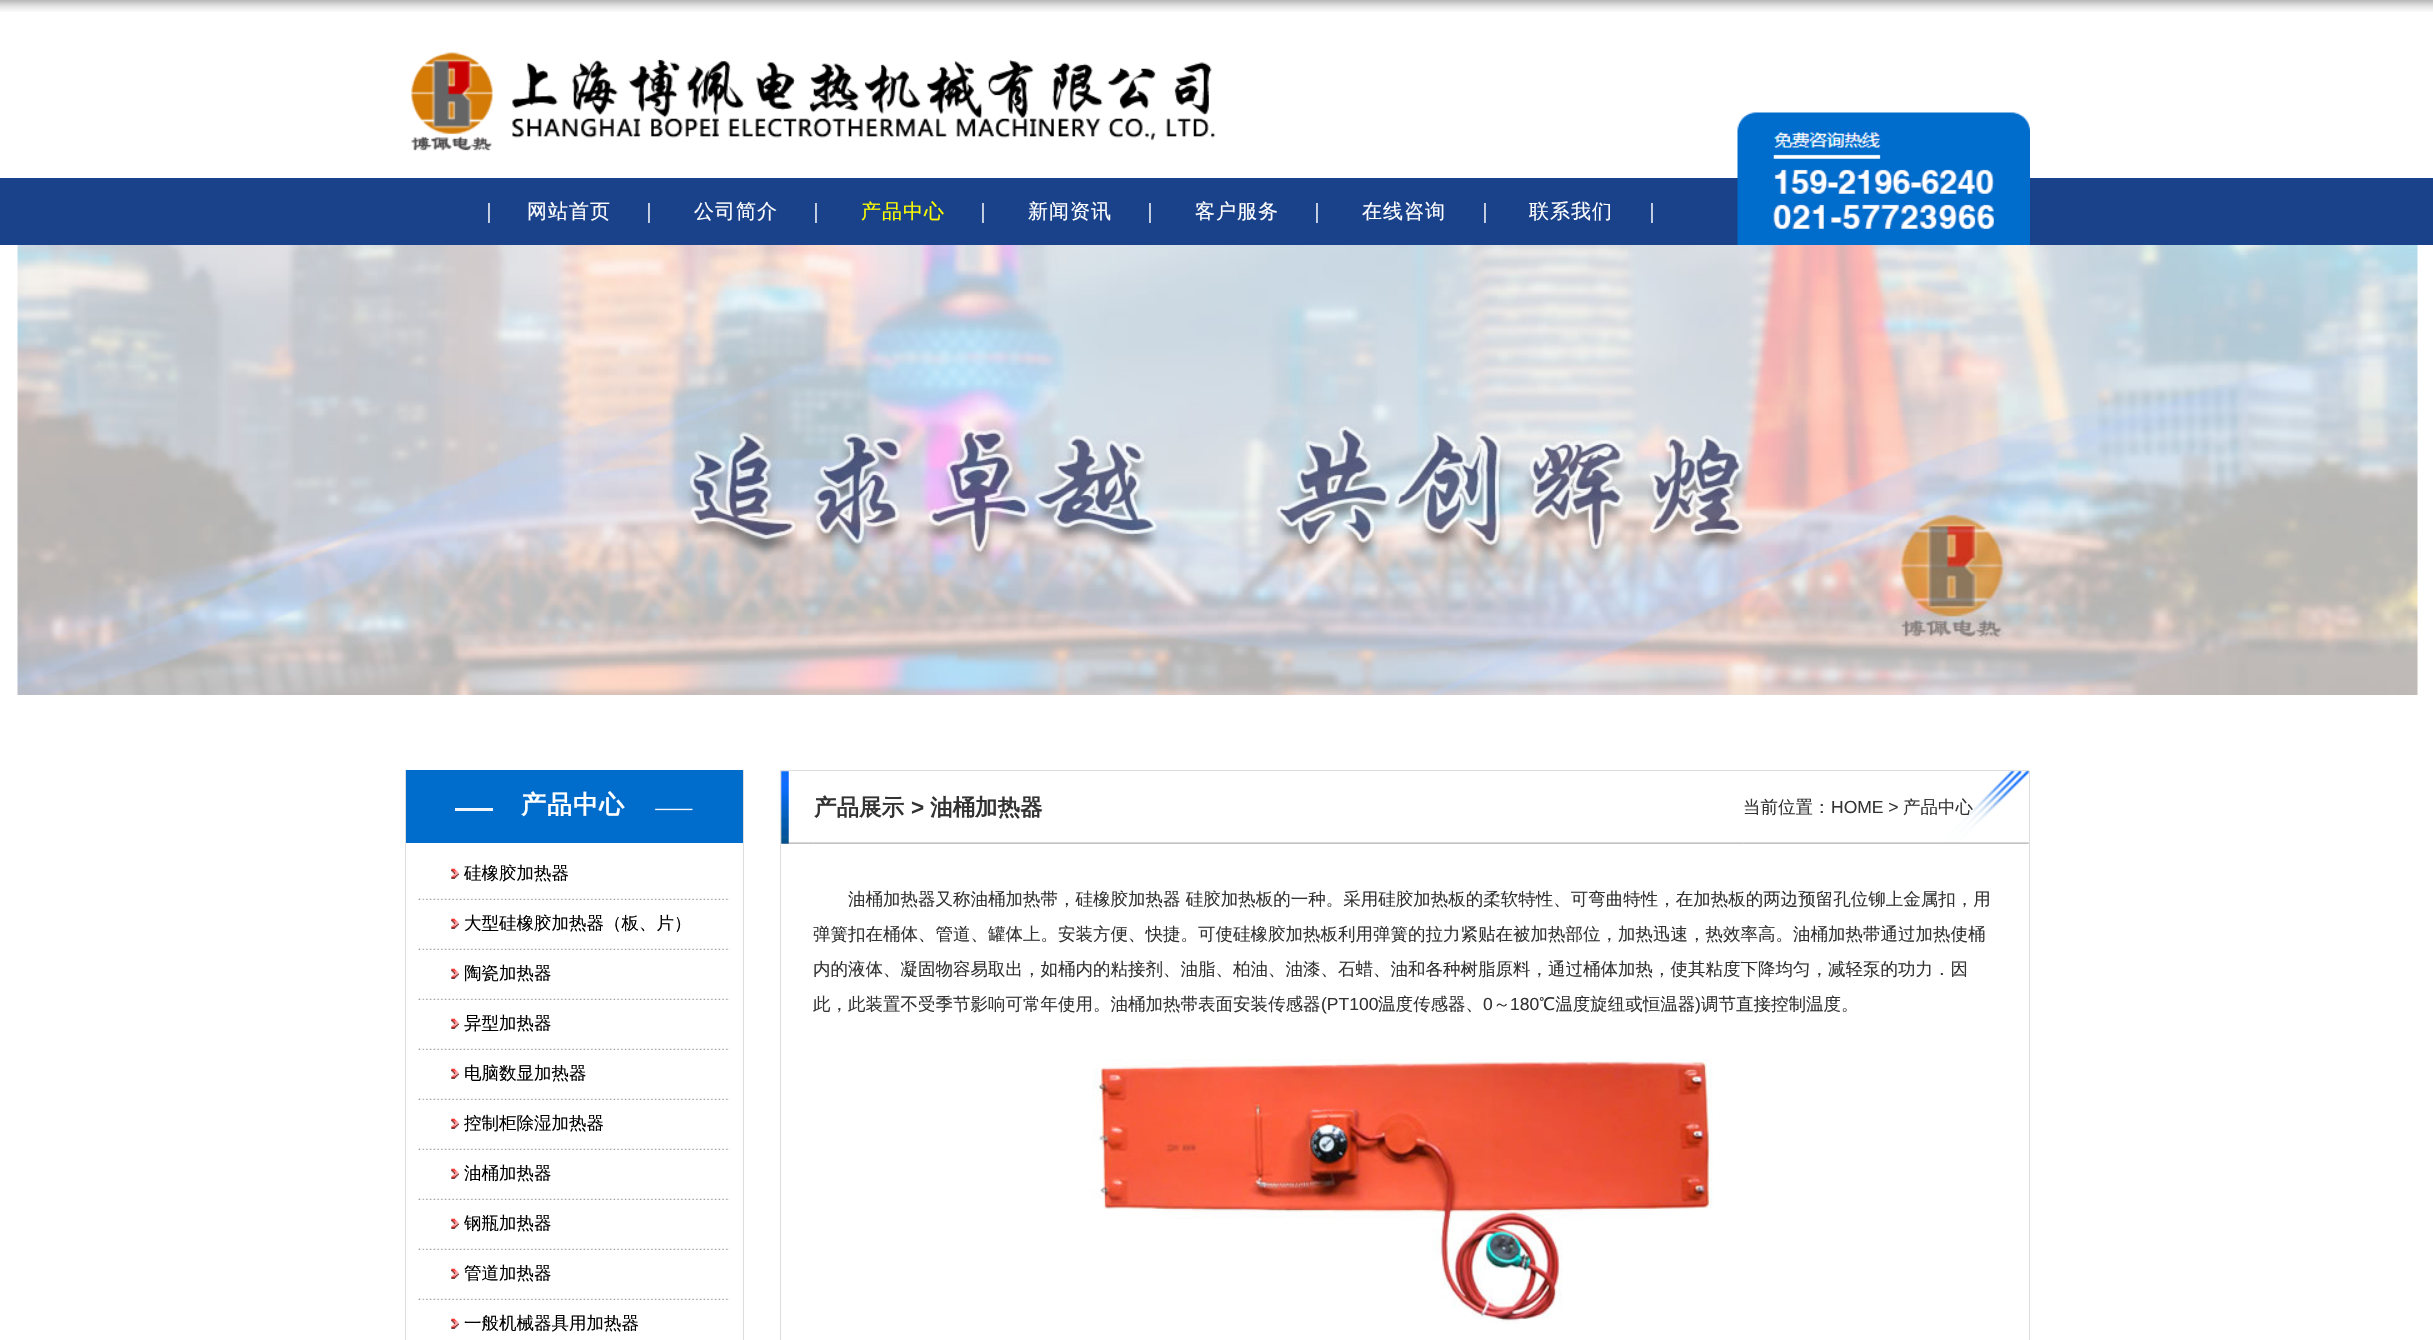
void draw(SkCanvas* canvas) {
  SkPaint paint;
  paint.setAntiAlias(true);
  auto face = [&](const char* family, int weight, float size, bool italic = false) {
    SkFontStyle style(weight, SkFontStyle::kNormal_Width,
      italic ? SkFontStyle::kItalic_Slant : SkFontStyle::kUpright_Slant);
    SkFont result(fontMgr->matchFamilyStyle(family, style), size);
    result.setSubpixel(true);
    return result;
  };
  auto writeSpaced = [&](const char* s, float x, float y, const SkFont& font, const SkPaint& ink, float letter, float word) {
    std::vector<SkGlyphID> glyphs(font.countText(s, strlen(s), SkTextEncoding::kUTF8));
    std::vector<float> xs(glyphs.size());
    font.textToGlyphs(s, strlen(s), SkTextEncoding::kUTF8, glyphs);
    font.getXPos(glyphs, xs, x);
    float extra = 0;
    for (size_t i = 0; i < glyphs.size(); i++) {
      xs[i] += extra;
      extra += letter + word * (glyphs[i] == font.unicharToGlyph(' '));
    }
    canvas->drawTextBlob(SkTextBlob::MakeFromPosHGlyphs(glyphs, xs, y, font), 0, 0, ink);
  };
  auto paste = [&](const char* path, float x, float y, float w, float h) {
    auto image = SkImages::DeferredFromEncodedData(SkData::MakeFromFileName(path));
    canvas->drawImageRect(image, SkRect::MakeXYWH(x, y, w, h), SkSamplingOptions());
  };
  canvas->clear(0xffffffff);
  paste("img/1.png", 0, 0, 2433, 12);
  paint.setColor(0xff1a428b);
  canvas->drawRect(SkRect::MakeXYWH(0, 178, 2433, 67), paint);
  paste("img/2.png", 411, 52, 805, 99);
  paste("img/3.png", 1737, 112, 293, 133);
  paste("img/4.png", 17, 245, 2401, 450);
  {
    const struct { float x, y, w, h; SkColor color; } items[] = {
      {743, 770, 1, 570, 0xffdddddd},
      {405, 770, 1, 570, 0xffdddddd},
      {406, 770, 337, 73, 0xff006ccc},
      {455, 808, 38, 3, 0xfff0f6fc},
    };
    for (auto [x, y, w, h, color] : items) {
      paint.setColor(color);
      canvas->drawRect(SkRect::MakeXYWH(x, y, w, h), paint);
    }
  }
  paste("img/5.png", 654, 808, 39, 3);
  paste("img/6.png", 451, 868, 8, 11);
  paste("img/7.png", 418, 898, 312, 2);
  paste("img/8.png", 418, 898, 5, 2);
  paste("img/6.png", 451, 918, 8, 11);
  paste("img/7.png", 418, 948, 312, 2);
  paste("img/8.png", 418, 948, 5, 2);
  paste("img/6.png", 451, 968, 8, 11);
  paste("img/7.png", 418, 998, 312, 2);
  paste("img/8.png", 418, 998, 5, 2);
  paste("img/6.png", 451, 1018, 8, 11);
  paste("img/7.png", 418, 1048, 312, 2);
  paste("img/8.png", 418, 1048, 5, 2);
  paste("img/6.png", 451, 1068, 8, 11);
  paste("img/7.png", 418, 1098, 312, 2);
  paste("img/8.png", 418, 1098, 5, 2);
  paste("img/6.png", 451, 1118, 8, 11);
  paste("img/7.png", 418, 1148, 312, 2);
  paste("img/8.png", 418, 1148, 5, 2);
  paste("img/9.png", 451, 1168, 8, 11);
  paste("img/7.png", 418, 1198, 312, 2);
  paste("img/8.png", 418, 1198, 5, 2);
  paste("img/6.png", 451, 1218, 8, 11);
  paste("img/7.png", 418, 1248, 312, 2);
  paste("img/8.png", 418, 1248, 5, 2);
  paste("img/6.png", 451, 1268, 8, 11);
  paste("img/7.png", 418, 1298, 312, 2);
  paste("img/8.png", 418, 1298, 5, 2);
  paste("img/6.png", 451, 1318, 8, 11);
  {
    const struct { float x, y, w, h; SkColor color; } items[] = {
      {780, 770, 1250, 1, 0xffdddddd},
      {2029, 770, 1, 570, 0xffdddddd},
      {780, 770, 1, 570, 0xffdddddd},
    };
    for (auto [x, y, w, h, color] : items) {
      paint.setColor(color);
      canvas->drawRect(SkRect::MakeXYWH(x, y, w, h), paint);
    }
  }
  paste("img/10.png", 781, 771, 33, 73);
  paste("img/11.png", 813, 842, 931, 2);
  paste("img/12.png", 1743, 771, 286, 73);
  paste("img/13.png", 1092, 1059, 621, 265);
  auto f0 = face("WenQuanYi Zen Hei", 500, 20);
  paint.setColor(0xffffffff);
  {
    const struct { const char* s; float x, y; } items[] = {
      {"｜", 479, 218},
      {"网站首页", 527, 218},
      {"｜", 639, 218},
      {"公司简介", 694, 218},
      {"｜", 806, 218},
    };
    for (auto [s, x, y] : items) {
      writeSpaced(s, x, y, f0, paint, 1, 0);
    }
  }
  paint.setColor(0xffffff00);
  writeSpaced("产品中心", 861, 218, f0, paint, 1, 0);
  paint.setColor(0xffffffff);
  {
    const struct { const char* s; float x, y; } items[] = {
      {"｜", 973, 218},
      {"新闻资讯", 1028, 218},
      {"｜", 1140, 218},
      {"客户服务", 1195, 218},
      {"｜", 1307, 218},
      {"在线咨询", 1362, 218},
      {"｜", 1475, 218},
      {"联系我们", 1529, 218},
      {"｜", 1642, 218},
    };
    for (auto [s, x, y] : items) {
      writeSpaced(s, x, y, f0, paint, 1, 0);
    }
  }
  auto f1 = face("WenQuanYi Zen Hei", 700, 25);
  writeSpaced("产品中心", 521, 813, f1, paint, 1, 0);
  auto f2 = face("WenQuanYi Zen Hei", 500, 17.5f);
  paint.setColor(0xff000000);
  {
    const struct { const char* s; float x, y; } items[] = {
      {"硅橡胶加热器", 464, 879},
      {"大型硅橡胶加热器（板、片）", 464, 929},
      {"陶瓷加热器", 464, 979},
      {"异型加热器", 464, 1029},
      {"电脑数显加热器", 464, 1079},
      {"控制柜除湿加热器", 464, 1129},
      {"油桶加热器", 464, 1179},
      {"钢瓶加热器", 464, 1229},
      {"管道加热器", 464, 1279},
      {"一般机械器具用加热器", 464, 1329},
    };
    for (auto [s, x, y] : items) {
      canvas->drawString(s, x, y, f2, paint);
    }
  }
  auto f3 = face("WenQuanYi Zen Hei", 700, 22.5f);
  paint.setColor(0xff333333);
  canvas->drawString("产品展示", 814, 815, f3, paint);
  auto f4 = face("Liberation Sans", 700, 22.5f);
  canvas->drawString(">", 911, 815, f4, paint);
  canvas->drawString("油桶加热器", 930, 815, f3, paint);
  canvas->drawString("当前位置：", 1743, 813, f2, paint);
  auto f5 = face("Liberation Sans", 400, 17.5f);
  canvas->drawString("HOME >", 1831, 813, f5, paint);
  {
    const struct { const char* s; float x, y; } items[] = {
      {"产品中心", 1903, 813},
      {"油桶加热器又称油桶加热带，硅橡胶加热器 硅胶加热板的一种。采用硅胶加热板的柔软特性、可弯曲特性，在加热板的两边预留孔位铆上金属扣，用", 848, 905},
      {"弹簧扣在桶体、管道、罐体上。安装方便、快捷。可使硅橡胶加热板利用弹簧的拉力紧贴在被加热部位，加热迅速，热效率高。油桶加热带通过加热使桶", 813, 940},
      {"内的液体、凝固物容易取出，如桶内的粘接剂、油脂、柏油、油漆、石蜡、油和各种树脂原料，通过桶体加热，使其粘度下降均匀，减轻泵的功力．因", 813, 975},
      {"此，此装置不受季节影响可常年使用。油桶加热带表面安装传感器", 813, 1010},
    };
    for (auto [s, x, y] : items) {
      canvas->drawString(s, x, y, f2, paint);
    }
  }
  canvas->drawString("(PT100", 1321, 1010, f5, paint);
  canvas->drawString("温度传感器、", 1378, 1010, f2, paint);
  canvas->drawString("0", 1483, 1010, f5, paint);
  canvas->drawString("～", 1493, 1010, f2, paint);
  canvas->drawString("180", 1510, 1010, f5, paint);
  canvas->drawString("℃温度旋纽或恒温器", 1539, 1010, f2, paint);
  canvas->drawString(")", 1695, 1010, f5, paint);
  canvas->drawString("调节直接控制温度。", 1701, 1010, f2, paint);
}
